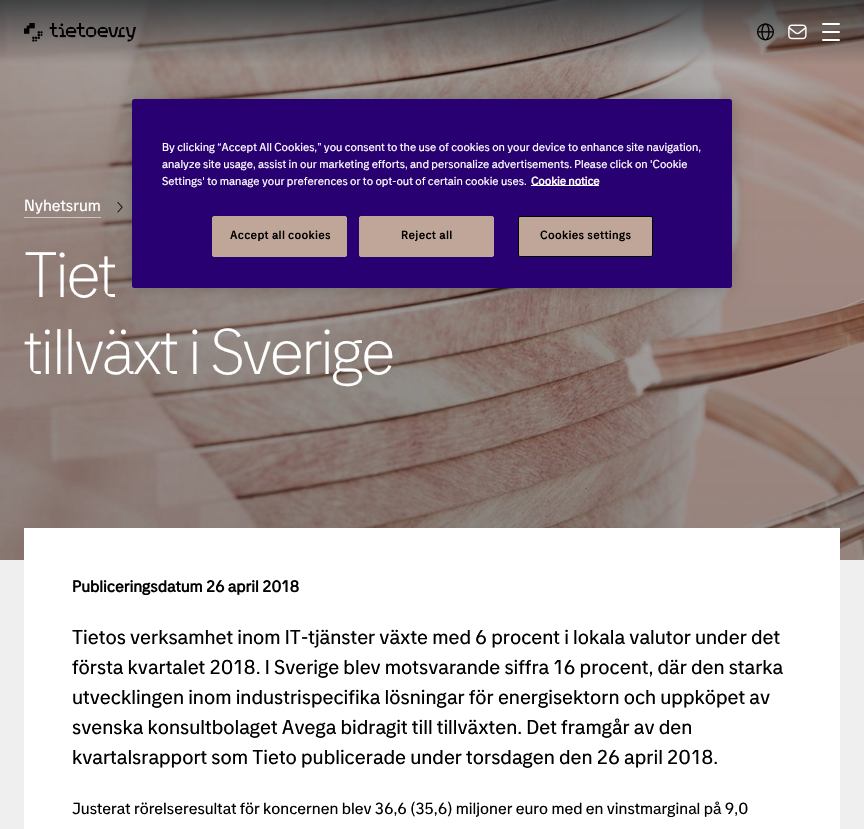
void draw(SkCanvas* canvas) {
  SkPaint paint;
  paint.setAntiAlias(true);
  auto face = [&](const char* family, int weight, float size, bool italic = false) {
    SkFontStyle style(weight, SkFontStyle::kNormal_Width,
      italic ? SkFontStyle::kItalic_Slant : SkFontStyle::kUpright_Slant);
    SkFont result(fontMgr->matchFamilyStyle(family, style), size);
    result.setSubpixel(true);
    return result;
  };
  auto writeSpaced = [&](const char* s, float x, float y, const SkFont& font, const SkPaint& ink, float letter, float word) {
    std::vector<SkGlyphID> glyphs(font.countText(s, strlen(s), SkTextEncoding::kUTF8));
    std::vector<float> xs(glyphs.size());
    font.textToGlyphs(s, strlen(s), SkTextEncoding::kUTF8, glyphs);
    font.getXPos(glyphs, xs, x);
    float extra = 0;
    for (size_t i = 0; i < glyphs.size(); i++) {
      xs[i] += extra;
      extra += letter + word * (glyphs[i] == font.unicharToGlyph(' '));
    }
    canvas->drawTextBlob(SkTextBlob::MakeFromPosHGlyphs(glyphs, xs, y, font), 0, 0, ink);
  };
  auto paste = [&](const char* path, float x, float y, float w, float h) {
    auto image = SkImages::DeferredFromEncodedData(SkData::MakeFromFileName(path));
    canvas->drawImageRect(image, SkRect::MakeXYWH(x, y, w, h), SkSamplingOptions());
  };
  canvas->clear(0xfff0efef);
  paste("img/4.png", 0, 0, 864, 560);
  paste("img/1.png", 24, 22, 112, 20);
  paste("img/2.png", 757, 23, 17, 18);
  paste("img/3.png", 788, 24, 19, 16);
  paint.setColor(0xffffffff);
  canvas->drawRoundRect(SkRect::MakeXYWH(822, 39, 18, 2), 1, 1, paint);
  canvas->drawRoundRect(SkRect::MakeXYWH(822, 23, 18, 2), 1, 1, paint);
  canvas->drawRoundRect(SkRect::MakeXYWH(822, 31, 18, 2), 1, 1, paint);
  paste("img/5.png", 117, 201, 6, 12);
  paint.setColor(0x33000000);
  paint.setMaskFilter(SkMaskFilter::MakeBlur(kNormal_SkBlurStyle, 9));
  canvas->drawRoundRect(SkRect::MakeXYWH(132, 99, 600, 189), 2.5f, 2.5f, paint);
  paint.setMaskFilter(nullptr);
  paint.setColor(0xff280071);
  canvas->drawRoundRect(SkRect::MakeXYWH(132, 99, 600, 189), 2.5f, 2.5f, paint);
  paint.setColor(0xffffffff);
  canvas->drawRect(SkRect::MakeXYWH(531, 185, 68, 1), paint);
  paint.setColor(0xffc0a699);
  canvas->drawRoundRect(SkRect::MakeXYWH(212.5f, 216.5f, 134, 40), 1.5f, 1.5f, paint);
  paint.setStroke(true);
  paint.setStrokeWidth(1);
  canvas->drawRoundRect(SkRect::MakeXYWH(212.5f, 216.5f, 134, 40), 1.5f, 1.5f, paint);
  paint.setStroke(false);
  canvas->drawRoundRect(SkRect::MakeXYWH(359.5f, 216.5f, 134, 40), 1.5f, 1.5f, paint);
  paint.setStroke(true);
  canvas->drawRoundRect(SkRect::MakeXYWH(359.5f, 216.5f, 134, 40), 1.5f, 1.5f, paint);
  paint.setStroke(false);
  canvas->drawRoundRect(SkRect::MakeXYWH(518.5f, 216.5f, 134, 40), 1.5f, 1.5f, paint);
  paint.setStroke(true);
  paint.setColor(0xff000000);
  canvas->drawRoundRect(SkRect::MakeXYWH(518.5f, 216.5f, 134, 40), 1.5f, 1.5f, paint);
  paint.setStroke(false);
  paint.setColor(0x8cfafafa);
  canvas->drawRect(SkRect::MakeXYWH(24, 217, 77, 1), paint);
  paint.setColor(0xffffffff);
  canvas->drawRect(SkRect::MakeXYWH(24, 528, 816, 301), paint);
  auto f0 = face("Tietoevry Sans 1", 400, 11.4f);
  {
    const struct { const char* s; float x, y; } items[] = {
      {"By clicking “Accept All Cookies,” you consent to the use of cookies on your device to enhance site navigation,", 162, 151},
      {"analyze site usage, assist in our marketing efforts, and personalize advertisements. Please click on 'Cookie", 162, 168},
      {"Settings' to manage your preferences or to opt-out of certain cookie uses.", 162, 185},
    };
    for (auto [s, x, y] : items) {
      canvas->drawString(s, x, y, f0, paint);
    }
  }
  auto f1 = face("Tietoevry Sans 1", 700, 11.4f);
  canvas->drawString("Cookie notice", 531, 185, f1, paint);
  paint.setColor(0xff000000);
  {
    const struct { const char* s; float x, y; } items[] = {
      {"Accept all cookies", 230, 239},
      {"Reject all", 401, 239},
      {"Cookies settings", 540, 239},
    };
    for (auto [s, x, y] : items) {
      writeSpaced(s, x, y, f1, paint, 0.6f, 0);
    }
  }
  auto f2 = face("Tietoevry Sans 1", 400, 16);
  paint.setColor(0xffffffff);
  canvas->drawString("Nyhetsrum", 24, 211, f2, paint);
  auto f3 = face("Tietoevry Sans 1", 100, 64);
  writeSpaced("Tiet", 24, 297, f3, paint, -2.4f, 0);
  writeSpaced("tillväxt i Sverige", 24, 374, f3, paint, -2.4f, 0);
  auto f4 = face("Tietoevry Sans 1", 700, 16);
  paint.setColor(0xff000000);
  canvas->drawString("Publiceringsdatum 26 april 2018", 72, 592, f4, paint);
  auto f5 = face("Tietoevry Sans 1", 400, 20);
  {
    const struct { const char* s; float x, y; } items[] = {
      {"Tietos verksamhet inom IT-tjänster växte med 6 procent i lokala valutor under det", 72, 644},
      {"första kvartalet 2018. I Sverige blev motsvarande siffra 16 procent, där den starka", 72, 674},
      {"utvecklingen inom industrispecifika lösningar för energisektorn och uppköpet av", 72, 704},
      {"svenska konsultbolaget Avega bidragit till tillväxten. Det framgår av den", 72, 734},
      {"kvartalsrapport som Tieto publicerade under torsdagen den 26 april 2018.", 72, 764},
    };
    for (auto [s, x, y] : items) {
      canvas->drawString(s, x, y, f5, paint);
    }
  }
  canvas->drawString("Justerat rörelseresultat för koncernen blev 36,6 (35,6) miljoner euro med en vinstmarginal på 9,0", 72, 814, f2, paint);
}
